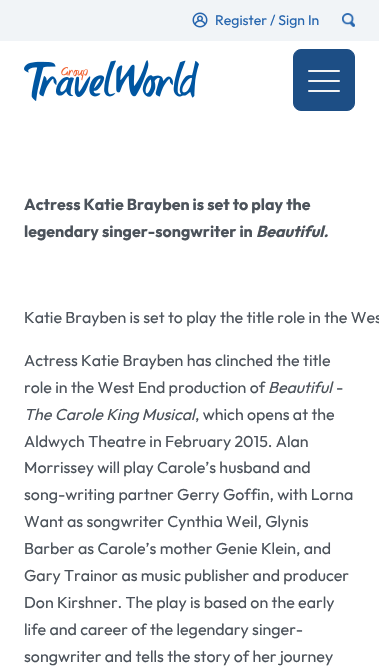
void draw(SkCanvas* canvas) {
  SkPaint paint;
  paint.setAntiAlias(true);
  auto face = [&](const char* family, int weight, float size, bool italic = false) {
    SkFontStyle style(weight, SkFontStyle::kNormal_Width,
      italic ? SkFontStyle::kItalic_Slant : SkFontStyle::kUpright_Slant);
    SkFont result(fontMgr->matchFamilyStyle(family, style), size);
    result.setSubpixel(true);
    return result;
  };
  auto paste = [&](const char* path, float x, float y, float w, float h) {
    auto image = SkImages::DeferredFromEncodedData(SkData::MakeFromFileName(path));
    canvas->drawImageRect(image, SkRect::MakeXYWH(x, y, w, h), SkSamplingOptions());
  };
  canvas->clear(0xffffffff);
  paint.setColor(0xfff1f4f7);
  canvas->drawRect(SkRect::MakeXYWH(0, 0, 379, 41), paint);
  paste("img/1.png", 192, 12, 16, 16);
  paste("img/2.png", 342, 13, 13, 14);
  paste("img/3.png", 24, 60, 175, 41);
  paint.setColor(0xff1d4e85);
  canvas->drawRoundRect(SkRect::MakeXYWH(293.5f, 49.5f, 61, 61), 7.5f, 7.5f, paint);
  paint.setStroke(true);
  paint.setStrokeWidth(1);
  canvas->drawRoundRect(SkRect::MakeXYWH(293.5f, 49.5f, 61, 61), 7.5f, 7.5f, paint);
  paste("img/4.png", 308, 70, 32, 22);
  auto f0 = face("Outfit", 400, 14);
  paint.setStroke(false);
  paint.setColor(0xff2665ae);
  canvas->drawString("Register / Sign In", 215, 25, f0, paint);
  auto f1 = face("Outfit", 700, 16);
  paint.setColor(0xff4c535b);
  canvas->drawString("Actress Katie Brayben is set to play the", 24, 210, f1, paint);
  canvas->drawString("legendary singer-songwriter in", 24, 237, f1, paint);
  auto f2 = face("Outfit", 700, 16, true);
  canvas->drawString("Beautiful.", 256, 237, f2, paint);
  auto f3 = face("Outfit", 400, 16);
  {
    const struct { const char* s; float x, y; } items[] = {
      {"Katie Brayben is set to play the title role in the Wes", 24, 323},
      {"Actress Katie Brayben has clinched the title", 24, 366},
      {"role in the West End production of", 24, 393},
    };
    for (auto [s, x, y] : items) {
      canvas->drawString(s, x, y, f3, paint);
    }
  }
  auto f4 = face("Outfit", 400, 16, true);
  canvas->drawString("Beautiful", 268, 393, f4, paint);
  canvas->drawString("-", 336, 393, f3, paint);
  canvas->drawString("The Carole King Musical", 24, 420, f4, paint);
  {
    const struct { const char* s; float x, y; } items[] = {
      {", which opens at the", 195, 420},
      {"Aldwych Theatre in February 2015. Alan", 24, 447},
      {"Morrissey will play Carole’s husband and", 24, 473},
      {"song-writing partner Gerry Goffin, with Lorna", 24, 500},
      {"Want as songwriter Cynthia Weil, Glynis", 24, 527},
      {"Barber as Carole’s mother Genie Klein, and", 24, 554},
      {"Gary Trainor as music publisher and producer", 24, 581},
      {"Don Kirshner. The play is based on the early", 24, 608},
      {"life and career of the legendary singer-", 24, 635},
      {"songwriter and tells the story of her journey", 24, 662},
    };
    for (auto [s, x, y] : items) {
      canvas->drawString(s, x, y, f3, paint);
    }
  }
}
